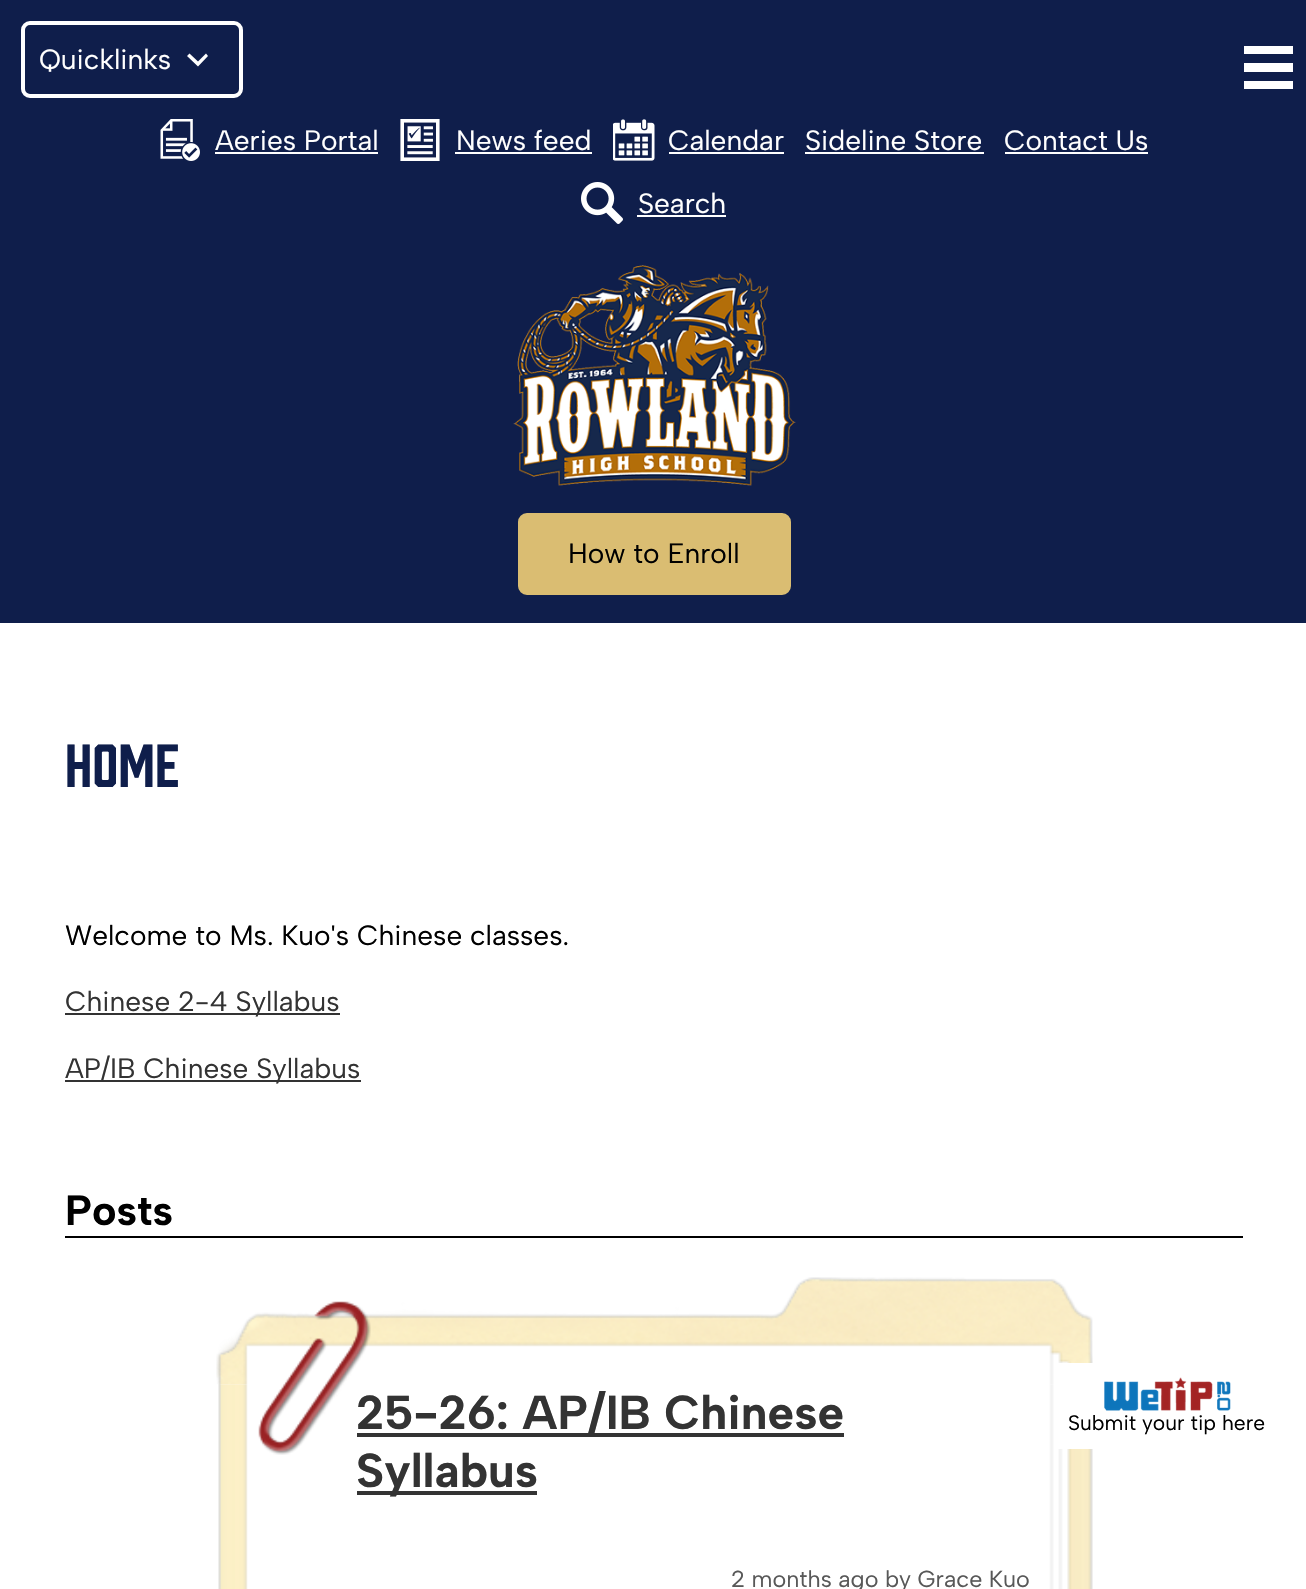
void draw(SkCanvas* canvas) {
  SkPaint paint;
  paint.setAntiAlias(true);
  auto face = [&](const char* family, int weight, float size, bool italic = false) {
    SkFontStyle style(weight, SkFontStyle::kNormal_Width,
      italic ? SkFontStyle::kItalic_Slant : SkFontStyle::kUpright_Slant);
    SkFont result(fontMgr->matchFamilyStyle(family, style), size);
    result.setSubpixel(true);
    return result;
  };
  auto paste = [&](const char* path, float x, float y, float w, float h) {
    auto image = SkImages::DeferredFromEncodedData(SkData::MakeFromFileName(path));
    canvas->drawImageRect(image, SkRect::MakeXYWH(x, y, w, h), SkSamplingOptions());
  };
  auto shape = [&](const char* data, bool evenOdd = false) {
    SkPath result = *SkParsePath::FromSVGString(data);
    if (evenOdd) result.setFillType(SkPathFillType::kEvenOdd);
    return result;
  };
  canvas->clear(0xffffffff);
  paint.setColor(0xff0f1e4b);
  canvas->drawRect(SkRect::MakeXYWH(0, 0, 1306, 623), paint);
  paint.setStroke(true);
  paint.setStrokeWidth(4);
  paint.setColor(0xffffffff);
  canvas->drawRoundRect(SkRect::MakeXYWH(23, 23, 218, 73), 7, 7, paint);
  paint.setStroke(false);
  canvas->drawPath(shape("M206 53.5L208 56L198 66.5L187 56L189.5 53.5L198 61.5Z"), paint);
  paste("img/1.png", 160, 119, 40, 42);
  canvas->drawRect(SkRect::MakeXYWH(215, 152, 163, 2), paint);
  paste("img/2.png", 400, 119, 40, 42);
  canvas->drawRect(SkRect::MakeXYWH(455, 152, 137, 2), paint);
  paste("img/3.png", 613, 119, 42, 42);
  {
    const struct { float x, y, w, h; SkColor color; } items[] = {
      {669, 152, 115, 2, 0xffffffff},
      {805, 152, 179, 2, 0xffffffff},
      {1005, 152, 143, 2, 0xffffffff},
    };
    for (auto [x, y, w, h, color] : items) {
      paint.setColor(color);
      canvas->drawRect(SkRect::MakeXYWH(x, y, w, h), paint);
    }
  }
  paste("img/4.png", 581, 182, 42, 42);
  canvas->drawRect(SkRect::MakeXYWH(637, 215, 89, 2), paint);
  paste("img/5.png", 513, 265, 283, 221);
  {
    const struct { float x, y, w, h; SkColor color; } items[] = {
      {1244, 46, 49, 8, 0xffffffff},
      {1244, 63, 49, 9, 0xffffffff},
      {1244, 81, 49, 8, 0xffffffff},
    };
    for (auto [x, y, w, h, color] : items) {
      paint.setColor(color);
      canvas->drawRect(SkRect::MakeXYWH(x, y, w, h), paint);
    }
  }
  paint.setColor(0xffdabd72);
  canvas->drawRoundRect(SkRect::MakeXYWH(520, 515, 269, 78), 7, 7, paint);
  paint.setStroke(true);
  canvas->drawRoundRect(SkRect::MakeXYWH(520, 515, 269, 78), 7, 7, paint);
  paste("img/8.png", 216, 1277, 877, 108);
  paste("img/9.png", 218, 1384, 875, 205);
  paint.setStroke(false);
  paint.setColor(0xffffffff);
  canvas->drawRect(SkRect::MakeXYWH(1058, 1363, 35, 86), paint);
  paste("img/6.png", 1104, 1377, 127, 34);
  {
    const struct { float x, y, w, h; SkColor color; } items[] = {
      {65, 1013, 275, 2, 0xff333333},
      {65, 1080, 296, 2, 0xff333333},
      {65, 1236, 1178, 2, 0xff000000},
      {357, 1433, 487, 4, 0xff333333},
      {357, 1491, 180, 4, 0xff333333},
    };
    for (auto [x, y, w, h, color] : items) {
      paint.setColor(color);
      canvas->drawRect(SkRect::MakeXYWH(x, y, w, h), paint);
    }
  }
  auto f0 = face("Albert Sans", 400, 28);
  paint.setColor(0xffffffff);
  {
    const struct { const char* s; float x, y; } items[] = {
      {"Quicklinks", 39, 69},
      {"Aeries Portal", 215, 150},
      {"News feed", 456, 150},
      {"Calendar", 668, 150},
      {"Sideline Store", 805, 150},
      {"Contact Us", 1004, 150},
      {"Search", 638, 213},
    };
    for (auto [s, x, y] : items) {
      canvas->drawString(s, x, y, f0, paint);
    }
  }
  paint.setColor(0xff000000);
  canvas->drawString("How to Enroll", 568, 563, f0, paint);
  auto f1 = face("Albert Sans", 400, 21);
  canvas->drawString("Submit your tip here", 1068, 1430, f1, paint);
  auto f2 = face("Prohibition", 400, 56);
  paint.setColor(0xff0f1e4b);
  canvas->drawString("HOME", 65, 787, f2, paint);
  paint.setColor(0xff000000);
  canvas->drawString("Welcome to Ms. Kuo's Chinese classes.", 65, 945, f0, paint);
  paint.setColor(0xff333333);
  canvas->drawString("Chinese 2-4 Syllabus", 65, 1011, f0, paint);
  canvas->drawString("AP/IB Chinese Syllabus", 65, 1078, f0, paint);
  auto f3 = face("Albert Sans", 700, 42);
  paint.setColor(0xff000000);
  canvas->drawString("Posts", 65, 1225, f3, paint);
  auto f4 = face("Albert Sans", 700, 47.6f);
  paint.setColor(0xff333333);
  canvas->drawString("25-26: AP/IB Chinese", 356, 1429, f4, paint);
  canvas->drawString("Syllabus", 356, 1487, f4, paint);
  paste("img/7.png", 258, 1301, 113, 154);
  auto f5 = face("Albert Sans", 400, 23.3f);
  paint.setColor(0xff585858);
  canvas->drawString("2 months ago by Grace Kuo", 731, 1587, f5, paint);
}
